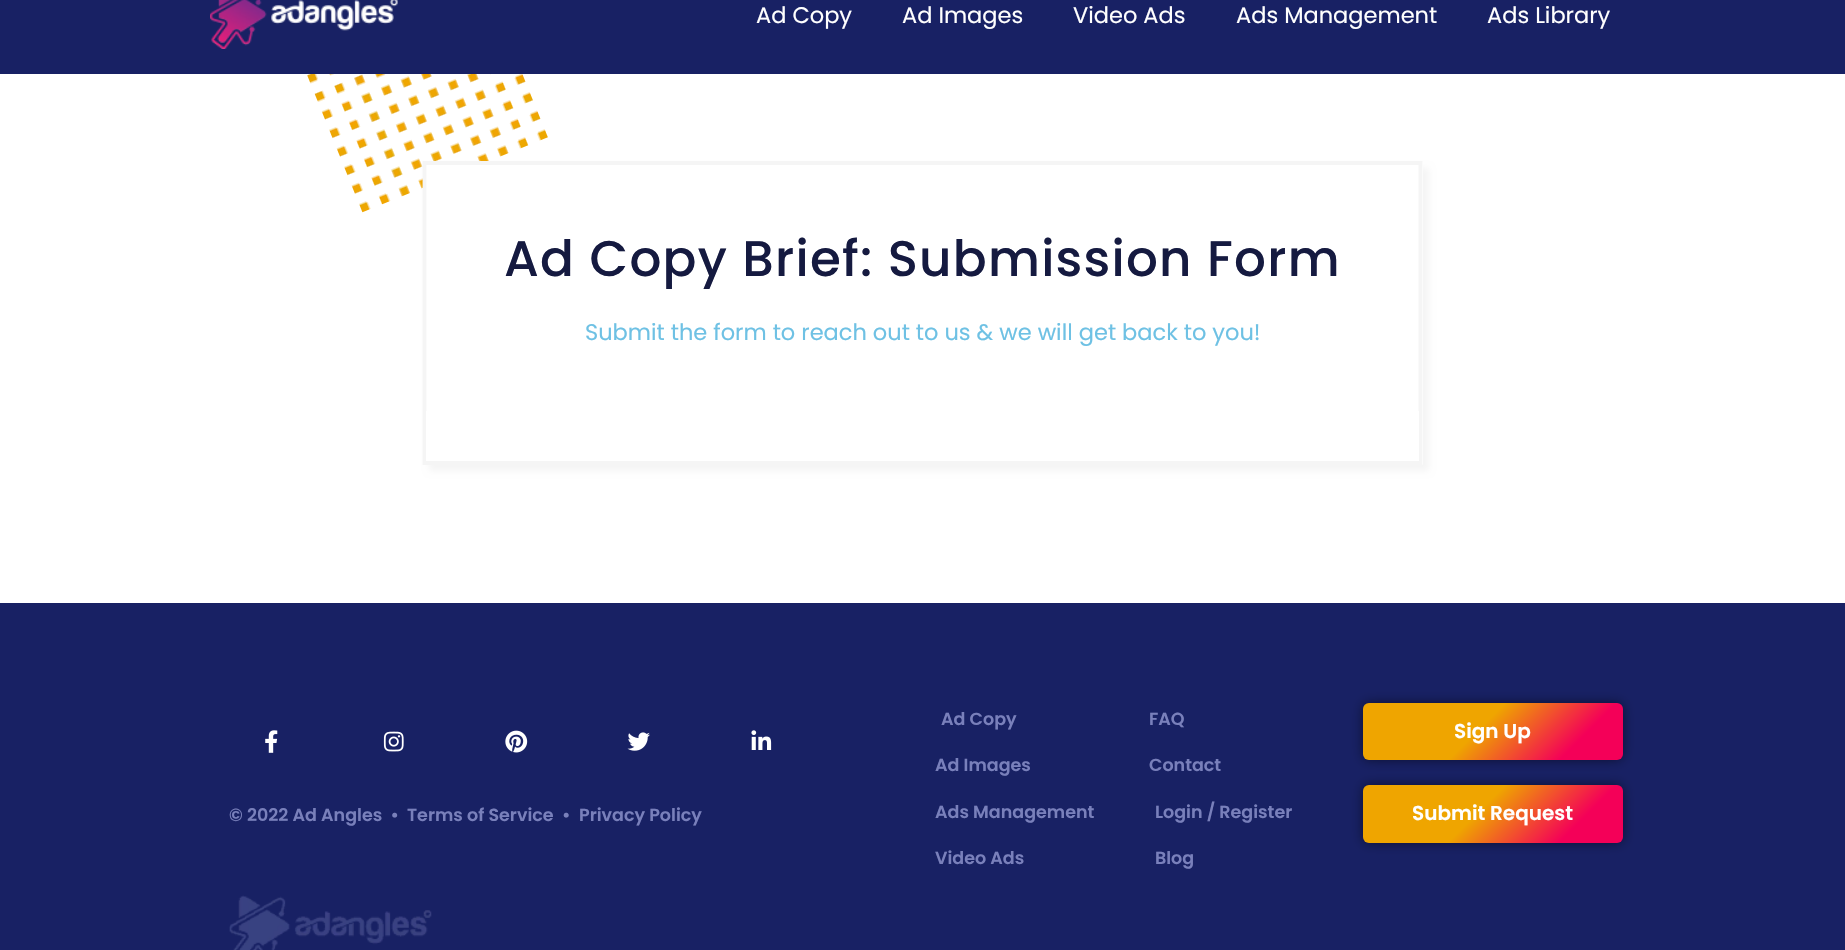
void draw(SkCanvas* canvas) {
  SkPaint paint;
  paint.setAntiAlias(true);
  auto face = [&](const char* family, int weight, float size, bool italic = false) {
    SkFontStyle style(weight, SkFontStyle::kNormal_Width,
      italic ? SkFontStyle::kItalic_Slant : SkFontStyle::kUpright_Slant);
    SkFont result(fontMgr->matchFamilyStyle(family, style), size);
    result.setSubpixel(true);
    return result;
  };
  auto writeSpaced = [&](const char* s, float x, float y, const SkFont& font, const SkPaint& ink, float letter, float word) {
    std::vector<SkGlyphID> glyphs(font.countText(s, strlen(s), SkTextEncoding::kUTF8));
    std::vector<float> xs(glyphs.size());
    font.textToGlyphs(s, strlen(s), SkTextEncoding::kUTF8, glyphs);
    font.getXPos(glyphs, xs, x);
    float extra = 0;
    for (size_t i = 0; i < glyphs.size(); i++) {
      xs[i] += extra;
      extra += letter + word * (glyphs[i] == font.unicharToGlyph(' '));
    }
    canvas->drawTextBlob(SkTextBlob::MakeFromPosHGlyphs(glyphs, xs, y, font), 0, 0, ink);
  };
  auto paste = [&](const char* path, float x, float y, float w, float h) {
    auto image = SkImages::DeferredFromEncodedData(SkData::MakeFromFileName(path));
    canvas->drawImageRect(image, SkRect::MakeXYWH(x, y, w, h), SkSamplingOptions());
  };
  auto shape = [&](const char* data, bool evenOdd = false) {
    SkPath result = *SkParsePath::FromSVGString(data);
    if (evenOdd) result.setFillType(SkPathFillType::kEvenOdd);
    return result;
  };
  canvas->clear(0xffffffff);
  paint.setColor(0xff182164);
  canvas->drawRect(SkRect::MakeXYWH(0, 0, 1845, 74), paint);
  paste("img/1.png", 210, 0, 188, 49);
  paste("img/2.png", 307, 74, 241, 139);
  paint.setColor(0xfff5f5f5);
  paint.setMaskFilter(SkMaskFilter::MakeBlur(kNormal_SkBlurStyle, 3));
  canvas->drawRoundRect(SkRect::MakeXYWH(429, 168, 1000, 303), 1, 1, paint);
  paint.setMaskFilter(nullptr);
  paint.setColor(0xffffffff);
  canvas->drawRoundRect(SkRect::MakeXYWH(423, 161, 1000, 304), 1, 1, paint);
  paint.setStroke(true);
  paint.setStrokeWidth(3.8f);
  paint.setColor(0xfff5f5f5);
  canvas->drawPath(shape("M424.5 163H1420.5V463H424.5Z"), paint);
  paint.setStroke(false);
  paint.setColor(0xffffffff);
  canvas->drawRect(SkRect::MakeXYWH(426, 411, 993, 50), paint);
  paint.setColor(0xff182164);
  canvas->drawRect(SkRect::MakeXYWH(0, 603, 1845, 347), paint);
  paste("img/3.png", 265, 730, 13, 23);
  paste("img/4.png", 383, 731, 21, 21);
  paste("img/5.png", 505, 730, 23, 23);
  paste("img/6.png", 627, 732, 23, 19);
  paste("img/7.png", 751, 730, 21, 20);
  paste("img/8.png", 229, 895, 203, 55);
  paint.setColor(0x80000000);
  paint.setMaskFilter(SkMaskFilter::MakeBlur(kNormal_SkBlurStyle, 6));
  canvas->drawRoundRect(SkRect::MakeXYWH(1363, 703, 260, 57), 6, 6, paint);
  paint.setMaskFilter(nullptr);
  {
    const SkColor colors[] = {0xffefa500, 0xfff40058};
    const float stops[] = {0.45f, 0.8f};
    const SkPoint ends[] = {{1413, 652}, {1572, 811}};
    paint.setShader(SkGradientShader::MakeLinear(ends, colors, stops, 2, SkTileMode::kClamp));
    paint.setAlpha(255);
  }
  canvas->drawRoundRect(SkRect::MakeXYWH(1363, 703, 260, 57), 6, 6, paint);
  paint.setShader(nullptr);
  paint.setColor(0x80000000);
  paint.setMaskFilter(SkMaskFilter::MakeBlur(kNormal_SkBlurStyle, 6));
  canvas->drawRoundRect(SkRect::MakeXYWH(1363, 785, 260, 58), 6, 6, paint);
  paint.setMaskFilter(nullptr);
  {
    const SkColor colors[] = {0xffefa500, 0xfff40058};
    const float stops[] = {0.45f, 0.8f};
    const SkPoint ends[] = {{1413, 734}, {1572, 893}};
    paint.setShader(SkGradientShader::MakeLinear(ends, colors, stops, 2, SkTileMode::kClamp));
    paint.setAlpha(255);
  }
  canvas->drawRoundRect(SkRect::MakeXYWH(1363, 785, 260, 58), 6, 6, paint);
  auto f0 = face("Poppins", 400, 22.5f);
  paint.setShader(nullptr);
  paint.setColor(0xffffffff);
  {
    const struct { const char* s; float x, y; } items[] = {
      {"Ad Copy", 756, 23},
      {"Ad Images", 902, 23},
      {"Video Ads", 1073, 23},
      {"Ads Management", 1236, 23},
      {"Ads Library", 1487, 23},
    };
    for (auto [s, x, y] : items) {
      canvas->drawString(s, x, y, f0, paint);
    }
  }
  auto f1 = face("Poppins", 500, 50);
  paint.setColor(0xff151a40);
  writeSpaced("Ad Copy Brief: Submission Form", 504, 276, f1, paint, 1.25f, 0);
  paint.setColor(0xff6ec1e4);
  canvas->drawString("Submit the form to reach out to us & we will get back to you!", 585, 340, f0, paint);
  auto f2 = face("Poppins", 600, 17.5f);
  paint.setColor(0xff7980bb);
  {
    const struct { const char* s; float x, y; } items[] = {
      {"© 2022 Ad Angles  •", 229, 821},
      {"Terms of Service", 407, 821},
      {"•", 562, 821},
      {"Privacy Policy", 579, 821},
      {"Ad Copy", 941, 725},
      {"Ad Images", 935, 771},
      {"Ads Management", 935, 818},
      {"Video Ads", 935, 864},
      {"FAQ", 1149, 725},
      {"Contact", 1149, 771},
      {"Login / Register", 1155, 818},
      {"Blog", 1155, 864},
    };
    for (auto [s, x, y] : items) {
      canvas->drawString(s, x, y, f2, paint);
    }
  }
  auto f3 = face("Poppins", 600, 20);
  paint.setColor(0xffffffff);
  canvas->drawString("Sign Up", 1454, 738, f3, paint);
  canvas->drawString("Submit Request", 1412, 820, f3, paint);
}
